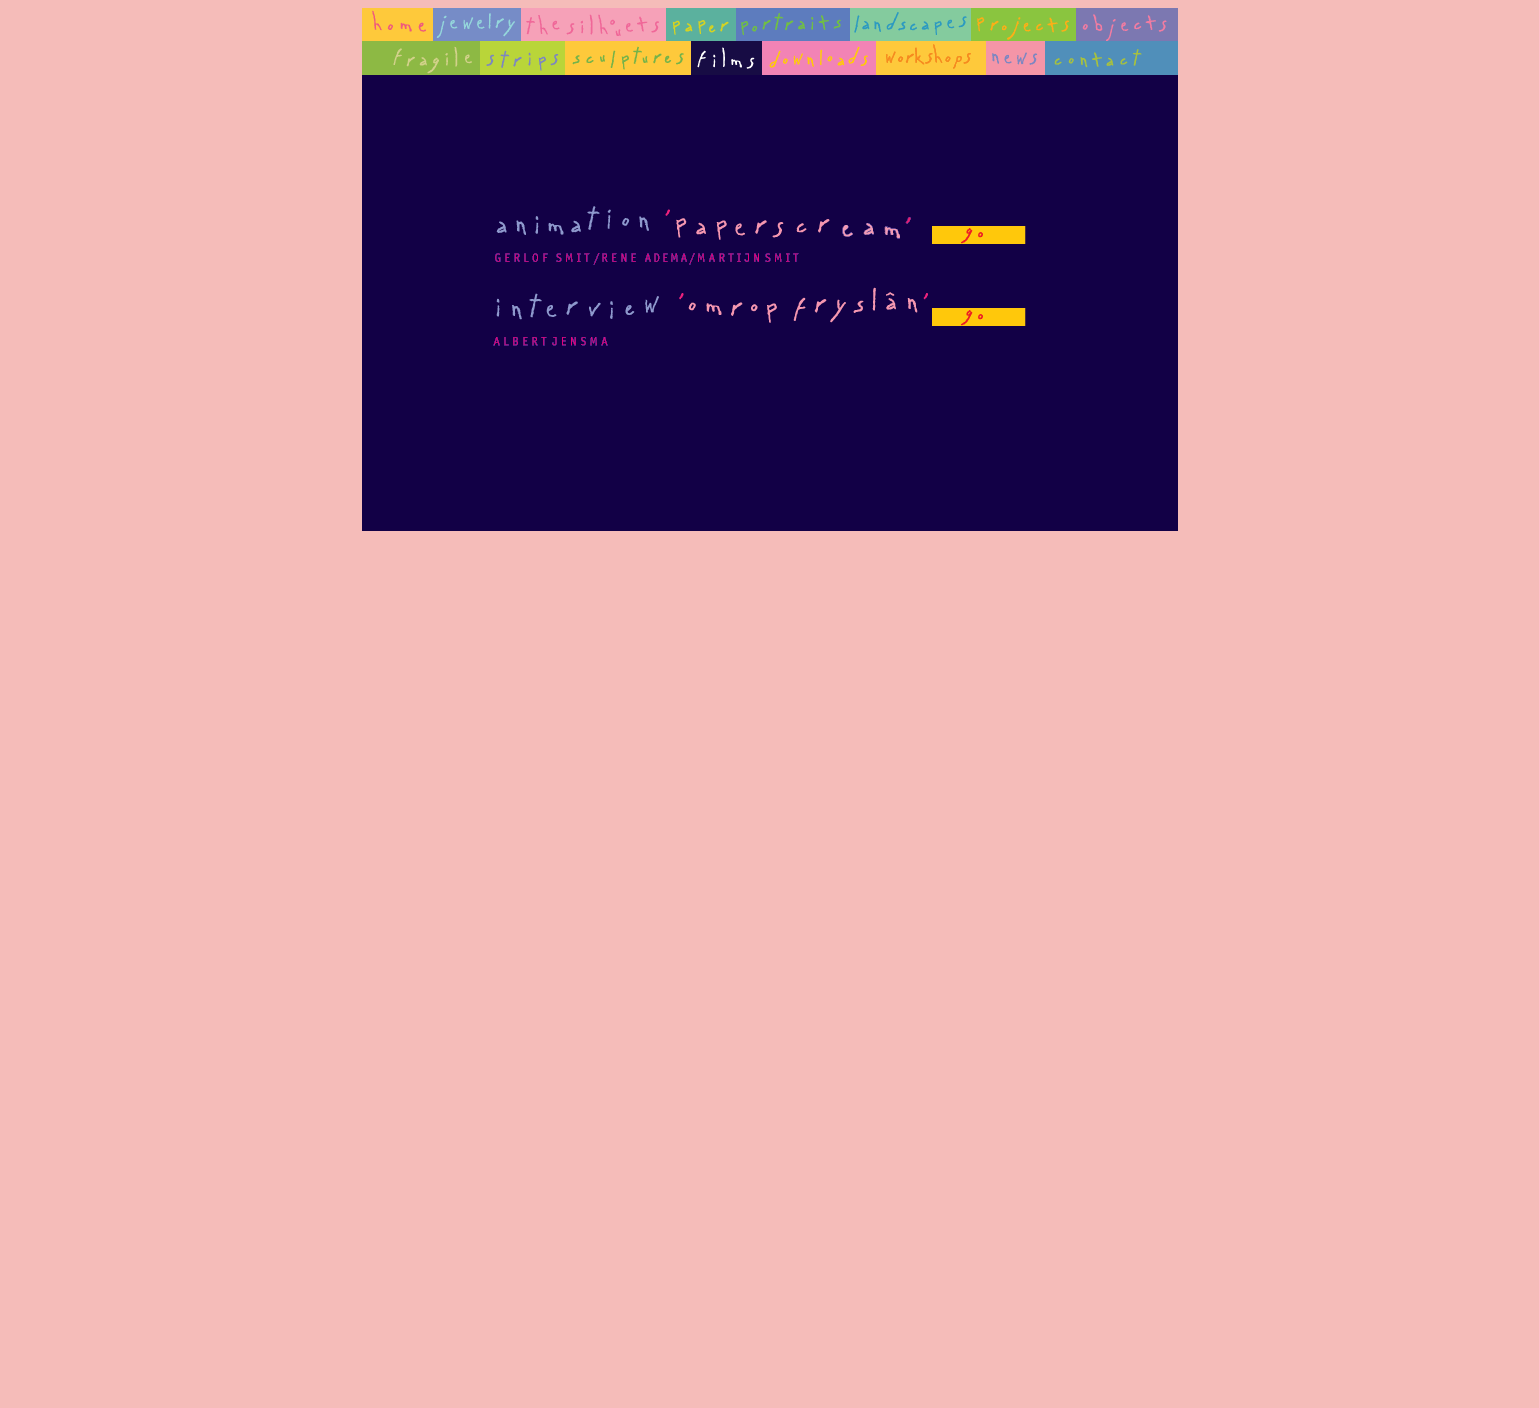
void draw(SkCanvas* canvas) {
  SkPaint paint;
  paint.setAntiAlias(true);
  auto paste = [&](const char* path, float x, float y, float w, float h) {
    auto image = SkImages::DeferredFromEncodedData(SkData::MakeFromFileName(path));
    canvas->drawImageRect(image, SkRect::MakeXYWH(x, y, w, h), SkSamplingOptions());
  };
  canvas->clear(0xfff5bcb9);
  paint.setColor(0xff120046);
  canvas->drawRect(SkRect::MakeXYWH(362, 75, 816, 456), paint);
  paste("img/1.png", 362, 8, 71, 33);
  paste("img/2.png", 433, 8, 88, 33);
  paste("img/3.png", 521, 8, 145, 33);
  paste("img/4.png", 666, 8, 70, 33);
  paste("img/5.png", 736, 8, 114, 33);
  paste("img/6.png", 850, 8, 121, 33);
  paste("img/7.png", 971, 8, 105, 33);
  paste("img/8.png", 1076, 8, 102, 33);
  paste("img/9.png", 362, 41, 118, 34);
  paste("img/10.png", 480, 41, 85, 34);
  paste("img/11.png", 565, 41, 126, 34);
  paste("img/12.png", 691, 41, 71, 34);
  paste("img/13.png", 762, 41, 114, 34);
  paste("img/14.png", 876, 41, 110, 34);
  paste("img/15.png", 986, 41, 59, 34);
  paste("img/16.png", 1045, 41, 133, 34);
  paste("img/17.png", 495, 206, 416, 59);
  paste("img/18.png", 932, 226, 94, 18);
  paste("img/19.png", 493, 287, 435, 59);
  paste("img/18.png", 932, 308, 94, 18);
}
